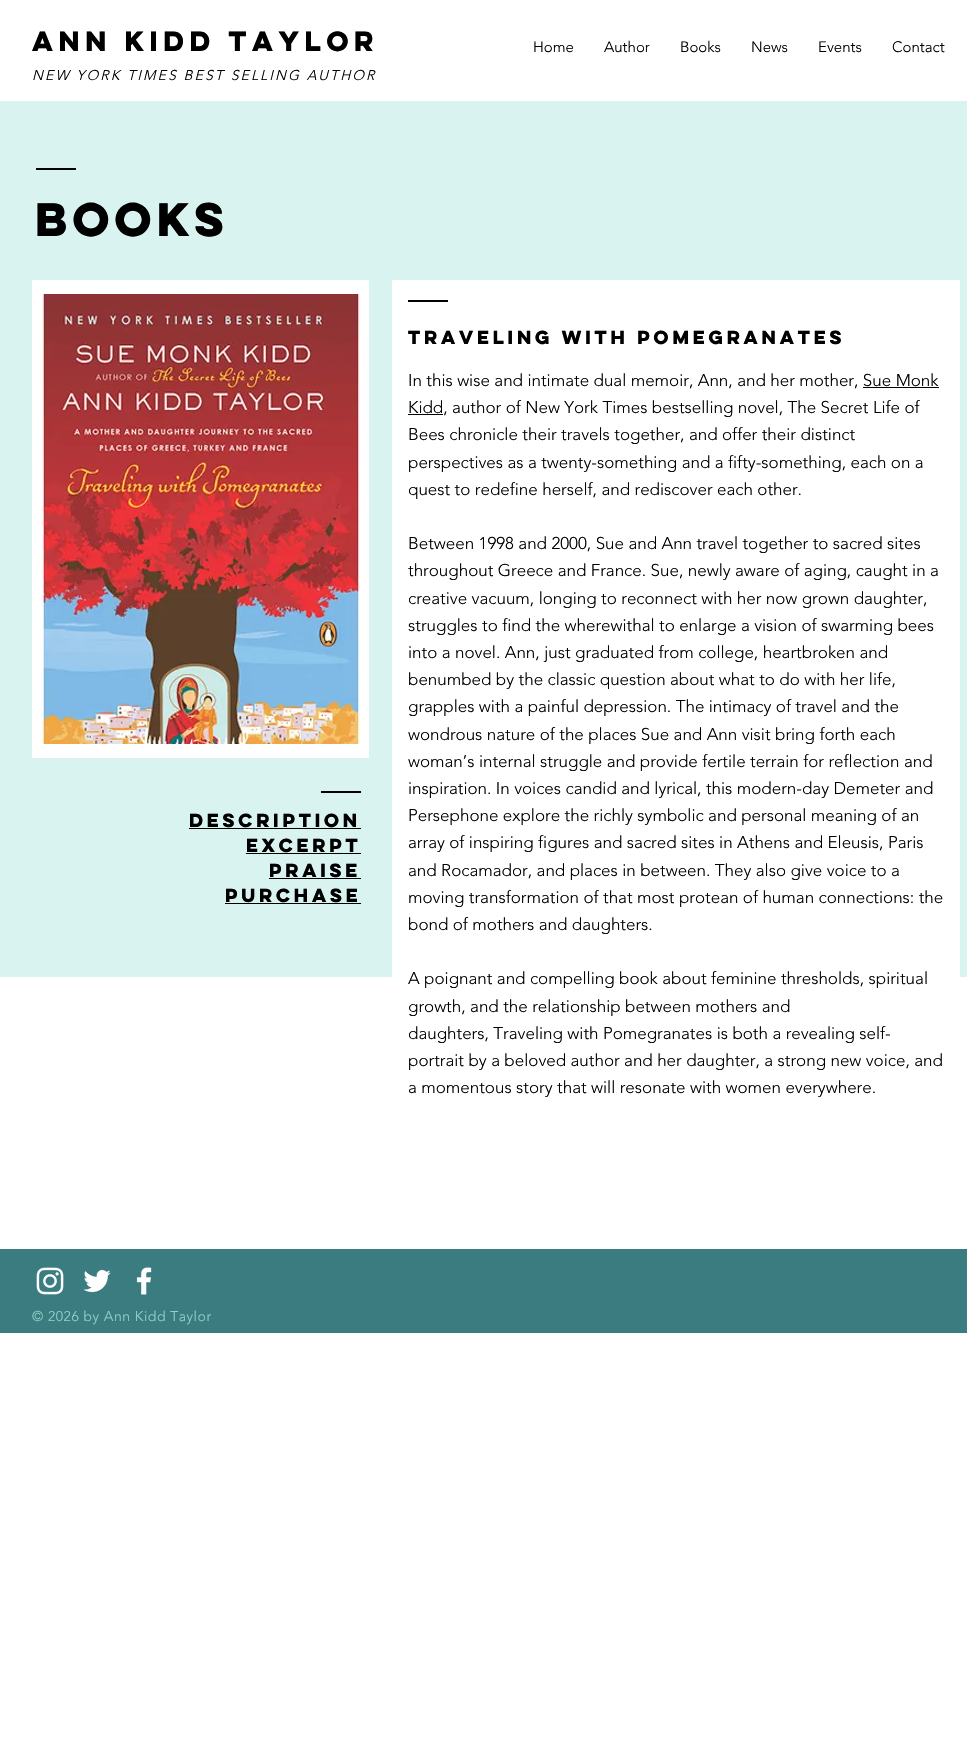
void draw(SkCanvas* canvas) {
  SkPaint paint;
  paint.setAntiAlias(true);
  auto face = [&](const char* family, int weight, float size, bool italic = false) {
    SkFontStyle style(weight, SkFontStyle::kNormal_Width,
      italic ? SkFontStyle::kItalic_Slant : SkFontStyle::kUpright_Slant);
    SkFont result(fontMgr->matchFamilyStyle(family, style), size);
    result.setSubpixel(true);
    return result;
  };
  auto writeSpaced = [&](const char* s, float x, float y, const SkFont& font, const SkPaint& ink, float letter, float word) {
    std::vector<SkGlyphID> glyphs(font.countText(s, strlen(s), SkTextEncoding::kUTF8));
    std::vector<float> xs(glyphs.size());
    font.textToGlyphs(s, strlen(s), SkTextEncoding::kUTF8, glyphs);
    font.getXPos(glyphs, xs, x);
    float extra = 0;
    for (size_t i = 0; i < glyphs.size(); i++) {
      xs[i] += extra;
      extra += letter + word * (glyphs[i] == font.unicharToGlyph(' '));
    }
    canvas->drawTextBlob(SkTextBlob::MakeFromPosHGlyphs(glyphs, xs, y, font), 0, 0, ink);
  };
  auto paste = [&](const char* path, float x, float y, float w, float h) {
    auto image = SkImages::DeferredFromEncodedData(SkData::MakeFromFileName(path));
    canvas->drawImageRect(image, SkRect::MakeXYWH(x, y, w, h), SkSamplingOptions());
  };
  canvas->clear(0xffffffff);
  {
    const struct { float x, y, w, h; SkColor color; } items[] = {
      {0, 101, 967, 876, 0xffd9f3f1},
      {36, 168, 40, 2, 0xff000000},
      {321, 791, 40, 2, 0xff000000},
      {189, 828, 172, 1, 0xff000000},
      {246, 853, 115, 1, 0xff000000},
      {269, 878, 92, 1, 0xff000000},
      {225, 903, 136, 1, 0xff000000},
      {32, 280, 337, 478, 0xffffffff},
    };
    for (auto [x, y, w, h, color] : items) {
      paint.setColor(color);
      canvas->drawRect(SkRect::MakeXYWH(x, y, w, h), paint);
    }
  }
  paste("img/1.png", 41, 294, 319, 450);
  {
    const struct { float x, y, w, h; SkColor color; } items[] = {
      {392, 280, 568, 697, 0xffffffff},
      {408, 300, 40, 2, 0xff000000},
      {863, 387, 76, 1, 0xff000000},
      {408, 414, 35, 1, 0xff000000},
      {0, 1249, 967, 84, 0xff3a7c80},
    };
    for (auto [x, y, w, h, color] : items) {
      paint.setColor(color);
      canvas->drawRect(SkRect::MakeXYWH(x, y, w, h), paint);
    }
  }
  paste("img/2.png", 36, 1267, 28, 28);
  paste("img/3.png", 83, 1269, 28, 24);
  paste("img/4.png", 136, 1267, 16, 28);
  auto f0 = face("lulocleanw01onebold", 700, 25);
  paint.setColor(0xff000000);
  canvas->drawString("ANN KIDD TAYLOR", 32, 51, f0, paint);
  auto f1 = face("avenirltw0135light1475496", 300, 15);
  {
    const struct { const char* s; float x, y; } items[] = {
      {"Home", 533, 52},
      {"Author", 604, 52},
      {"Books", 680, 52},
      {"News", 751, 52},
      {"Events", 818, 52},
      {"Contact", 892, 52},
    };
    for (auto [s, x, y] : items) {
      canvas->drawString(s, x, y, f1, paint);
    }
  }
  auto f2 = face("avenirltw0135light1475496", 300, 14, true);
  writeSpaced("NEW YORK TIMES BEST SELLING AUTHOR", 32, 80, f2, paint, 2.1f, 0);
  auto f3 = face("lulocleanw01onebold", 700, 42);
  writeSpaced("BOOKS", 35, 236, f3, paint, -4.25f, 0);
  auto f4 = face("lulocleanw01onebold", 700, 17);
  {
    const struct { const char* s; float x, y; } items[] = {
      {"DESCRIPTION", 189, 827},
      {"EXCERPT", 246, 852},
      {"PRAISE", 269, 877},
      {"PURCHASE", 225, 902},
      {"traveling with pomegranates", 408, 344},
    };
    for (auto [s, x, y] : items) {
      canvas->drawString(s, x, y, f4, paint);
    }
  }
  auto f5 = face("avenirltw0135light1475496", 300, 17);
  {
    const struct { const char* s; float x, y; } items[] = {
      {"In this wise and intimate dual memoir, Ann, and her mother, Sue Monk", 408, 386},
      {"Kidd, author of New York Times bestselling novel, The Secret Life of", 408, 413},
      {"Bees chronicle their travels together, and offer their distinct", 408, 440},
      {"perspectives as a twenty-something and a fifty-something, each on a", 408, 468},
      {"quest to redefine herself, and rediscover each other.", 408, 495},
      {"Between 1998 and 2000, Sue and Ann travel together to sacred sites", 408, 549},
      {"throughout Greece and France. Sue, newly aware of aging, caught in a", 408, 576},
      {"creative vacuum, longing to reconnect with her now grown daughter,", 408, 604},
      {"struggles to find the wherewithal to enlarge a vision of swarming bees", 408, 631},
      {"into a novel. Ann, just graduated from college, heartbroken and", 408, 658},
      {"benumbed by the classic question about what to do with her life,", 408, 685},
      {"grapples with a painful depression. The intimacy of travel and the", 408, 712},
      {"wondrous nature of the places Sue and Ann visit bring forth each", 408, 740},
      {"woman’s internal struggle and provide fertile terrain for reflection and", 408, 767},
      {"inspiration. In voices candid and lyrical, this modern-day Demeter and", 408, 794},
      {"Persephone explore the richly symbolic and personal meaning of an", 408, 821},
      {"array of inspiring figures and sacred sites in Athens and Eleusis, Paris", 408, 848},
      {"and Rocamador, and places in between. They also give voice to a", 408, 876},
      {"moving transformation of that most protean of human connections: the", 408, 903},
      {"bond of mothers and daughters.", 408, 930},
      {"A poignant and compelling book about feminine thresholds, spiritual", 408, 984},
      {"growth, and the relationship between mothers and", 408, 1012},
      {"daughters, Traveling with Pomegranates is both a revealing self-", 408, 1039},
      {"portrait by a beloved author and her daughter, a strong new voice, and", 408, 1066},
      {"a momentous story that will resonate with women everywhere.", 408, 1093},
    };
    for (auto [s, x, y] : items) {
      canvas->drawString(s, x, y, f5, paint);
    }
  }
  auto f6 = face("avenirltw0135light1475496", 300, 14);
  paint.setColor(0xff8dd1ca);
  writeSpaced("© 2026 by Ann Kidd Taylor", 32, 1321, f6, paint, 0.55f, 0);
}
